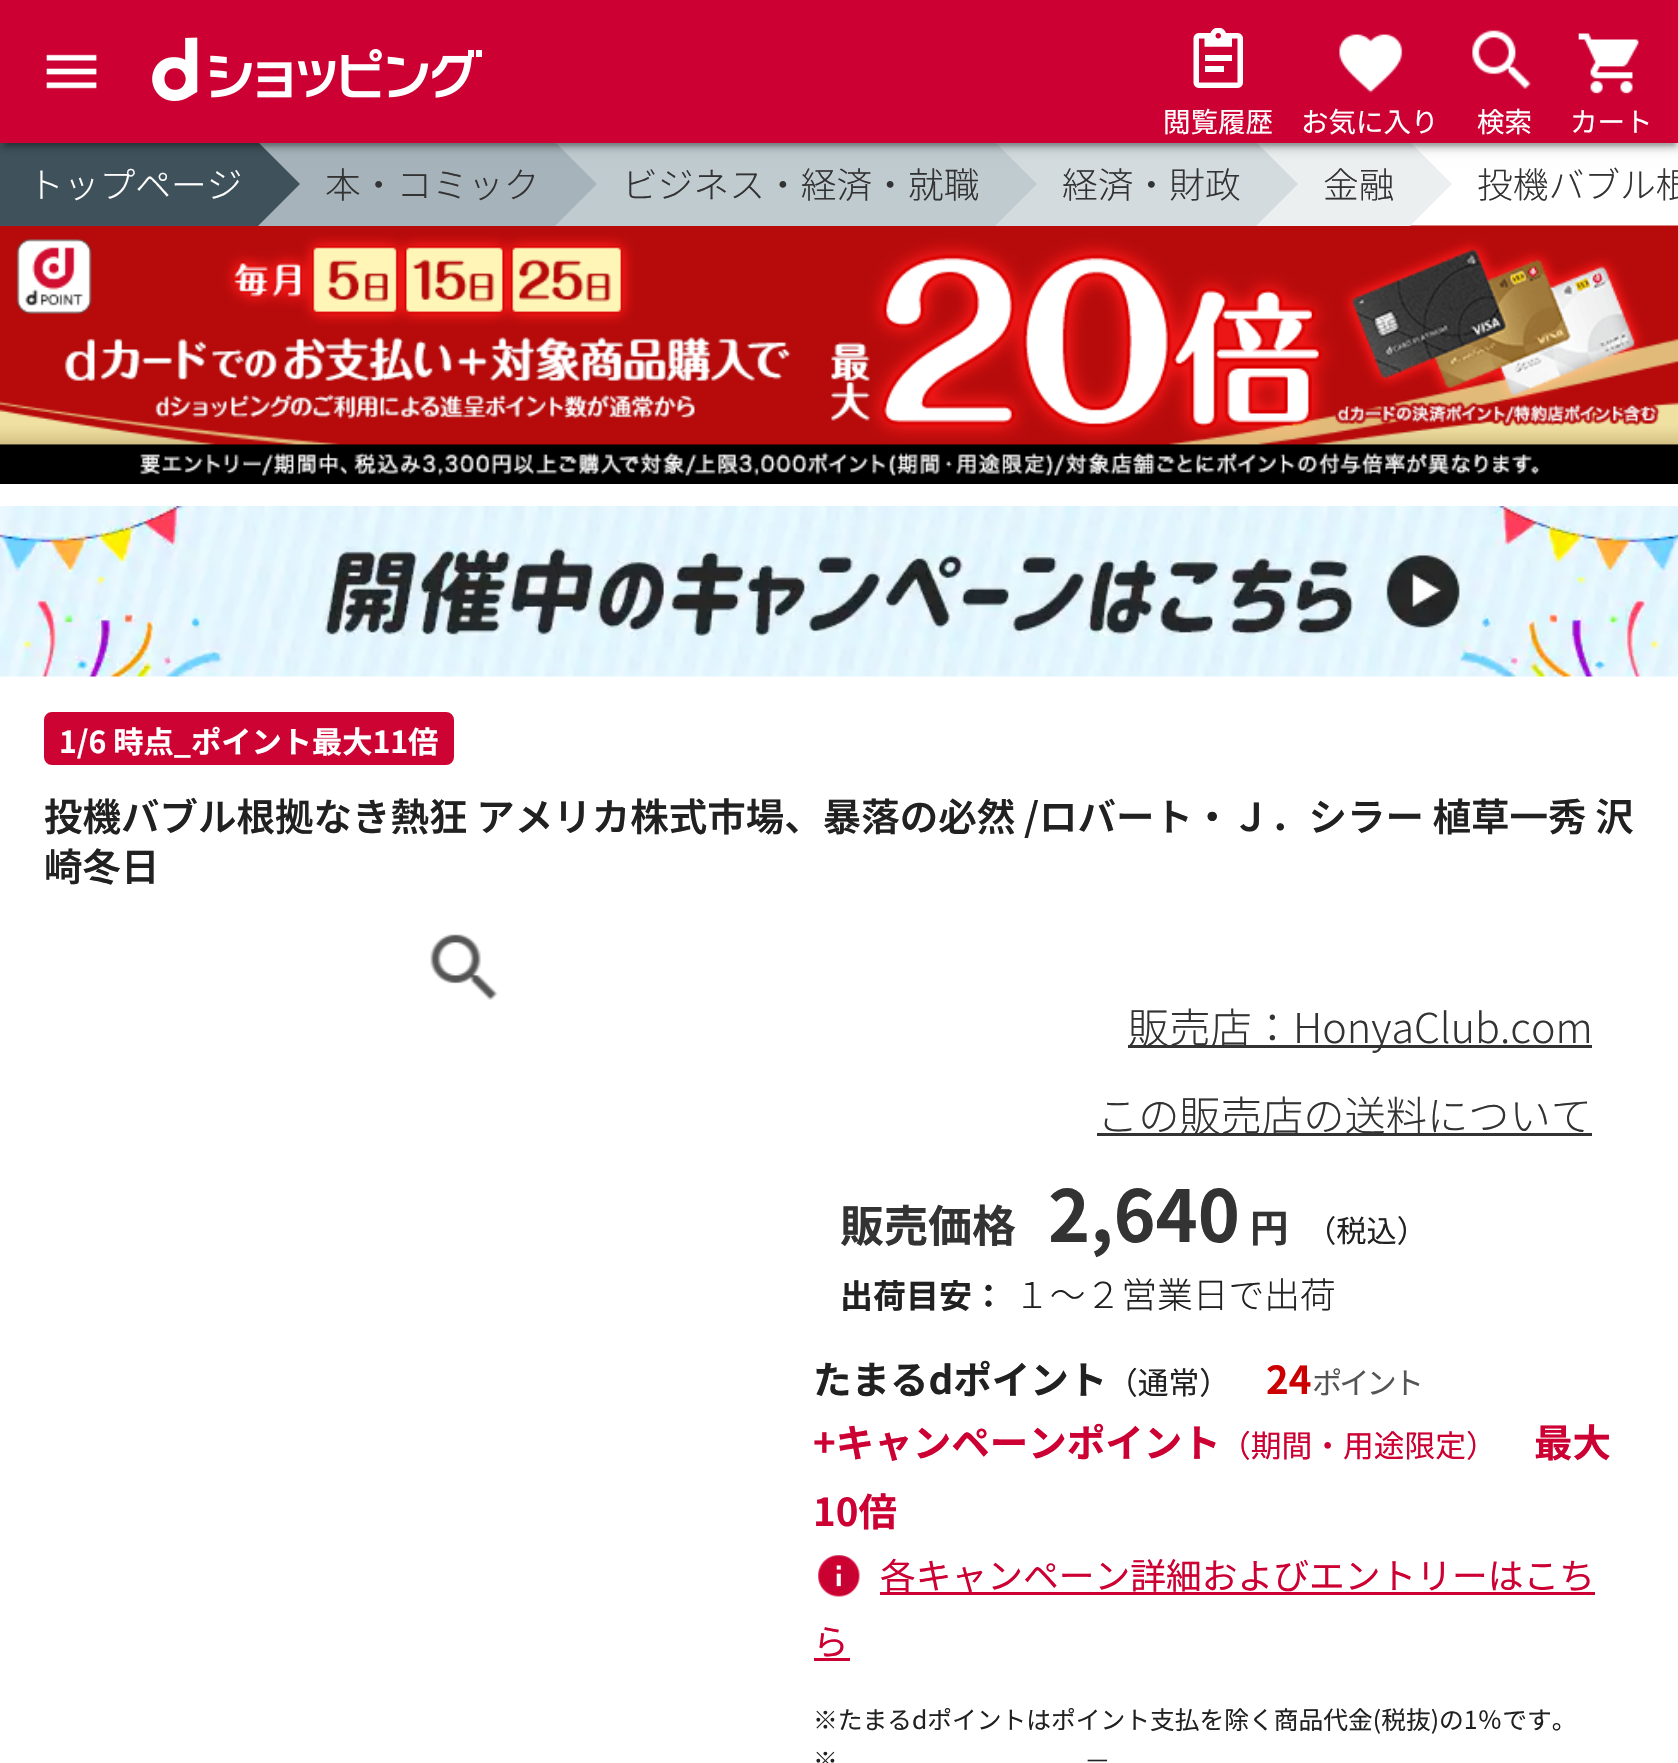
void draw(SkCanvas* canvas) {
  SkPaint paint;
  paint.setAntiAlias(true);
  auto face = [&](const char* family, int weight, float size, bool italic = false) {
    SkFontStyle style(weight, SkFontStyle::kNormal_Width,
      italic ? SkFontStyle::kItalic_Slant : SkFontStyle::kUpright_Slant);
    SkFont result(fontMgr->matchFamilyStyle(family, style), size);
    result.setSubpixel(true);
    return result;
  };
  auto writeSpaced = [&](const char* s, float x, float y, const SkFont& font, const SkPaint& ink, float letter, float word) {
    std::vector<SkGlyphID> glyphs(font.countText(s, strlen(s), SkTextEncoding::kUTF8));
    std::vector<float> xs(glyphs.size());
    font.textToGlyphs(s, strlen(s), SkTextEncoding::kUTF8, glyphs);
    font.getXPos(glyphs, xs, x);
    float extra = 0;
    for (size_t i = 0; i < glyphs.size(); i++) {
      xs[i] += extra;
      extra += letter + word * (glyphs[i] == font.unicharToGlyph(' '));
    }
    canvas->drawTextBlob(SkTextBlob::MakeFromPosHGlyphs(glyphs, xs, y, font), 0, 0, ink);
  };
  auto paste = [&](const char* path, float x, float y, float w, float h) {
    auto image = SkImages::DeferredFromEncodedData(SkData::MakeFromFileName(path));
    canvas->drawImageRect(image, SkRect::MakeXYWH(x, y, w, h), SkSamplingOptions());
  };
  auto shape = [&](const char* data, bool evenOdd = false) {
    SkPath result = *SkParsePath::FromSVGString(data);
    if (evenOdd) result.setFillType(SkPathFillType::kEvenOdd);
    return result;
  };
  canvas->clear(0xffffffff);
  paste("img/7.png", 0, 225, 1678, 259);
  paint.setColor(0xff3f525b);
  canvas->drawRect(SkRect::MakeXYWH(0, 143, 256, 83), paint);
  paint.setColor(0xffa6b3ba);
  canvas->drawRect(SkRect::MakeXYWH(258, 143, 295, 83), paint);
  canvas->save();
  canvas->clipRect(SkRect::MakeXYWH(0, 143, 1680, 83));
  paint.setColor(0xff3f525b);
  canvas->drawPath(shape("M256 228V140L300 184Z"), paint);
  canvas->restore();
  paint.setColor(0xffc0cbd0);
  canvas->drawRect(SkRect::MakeXYWH(555, 143, 438, 83), paint);
  canvas->save();
  canvas->clipRect(SkRect::MakeXYWH(0, 143, 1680, 83));
  paint.setColor(0xffa6b3ba);
  canvas->drawPath(shape("M553 228V140L597 184Z"), paint);
  canvas->restore();
  paint.setColor(0xffd3dbdf);
  canvas->drawRect(SkRect::MakeXYWH(995, 143, 259, 83), paint);
  canvas->save();
  canvas->clipRect(SkRect::MakeXYWH(0, 143, 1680, 83));
  paint.setColor(0xffc0cbd0);
  canvas->drawPath(shape("M993 228V140L1037 184Z"), paint);
  canvas->restore();
  paint.setColor(0xffebeff0);
  canvas->drawRect(SkRect::MakeXYWH(1256, 143, 152, 83), paint);
  canvas->save();
  canvas->clipRect(SkRect::MakeXYWH(0, 143, 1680, 83));
  paint.setColor(0xffd3dbdf);
  canvas->drawPath(shape("M1254 228V140L1298 184Z"), paint);
  paint.setColor(0xffebeff0);
  canvas->drawPath(shape("M1408 228V140L1452 184Z"), paint);
  canvas->restore();
  paint.setColor(0x33000000);
  paint.setMaskFilter(SkMaskFilter::MakeBlur(kNormal_SkBlurStyle, 1.5f));
  canvas->drawRect(SkRect::MakeXYWH(6, 14, 1669, 132), paint);
  paint.setMaskFilter(nullptr);
  paint.setColor(0x1f000000);
  paint.setMaskFilter(SkMaskFilter::MakeBlur(kNormal_SkBlurStyle, 7));
  canvas->drawRect(SkRect::MakeXYWH(0, 3, 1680, 143), paint);
  paint.setMaskFilter(nullptr);
  paint.setColor(0x24000000);
  paint.setMaskFilter(SkMaskFilter::MakeBlur(kNormal_SkBlurStyle, 3));
  canvas->drawRect(SkRect::MakeXYWH(0, 6, 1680, 143), paint);
  paint.setMaskFilter(nullptr);
  paint.setColor(0xffcc0033);
  canvas->drawRect(SkRect::MakeXYWH(0, 0, 1678, 143), paint);
  paste("img/1.png", 46, 54, 51, 35);
  paste("img/2.png", 152, 37, 330, 64);
  paste("img/3.png", 1193, 28, 50, 60);
  paste("img/4.png", 1339, 34, 64, 59);
  paste("img/5.png", 1472, 30, 59, 59);
  paste("img/6.png", 1578, 33, 61, 61);
  paste("img/8.png", 0, 506, 1678, 171);
  paint.setColor(0xffcc0333);
  canvas->drawRoundRect(SkRect::MakeXYWH(45.5f, 713.5f, 407, 50), 6.5f, 6.5f, paint);
  paint.setStroke(true);
  paint.setStrokeWidth(3);
  canvas->drawRoundRect(SkRect::MakeXYWH(45.5f, 713.5f, 407, 50), 6.5f, 6.5f, paint);
  paste("img/9.png", 430, 934, 68, 66);
  paint.setStroke(false);
  paint.setColor(0xff333333);
  canvas->drawRect(SkRect::MakeXYWH(1128, 1045, 464, 3), paint);
  canvas->drawRect(SkRect::MakeXYWH(1097, 1133, 495, 3), paint);
  paste("img/10.png", 818, 1555, 42, 42);
  paint.setColor(0xffcc0033);
  canvas->drawRect(SkRect::MakeXYWH(880, 1592, 715, 3), paint);
  canvas->drawRect(SkRect::MakeXYWH(814, 1658, 36, 3), paint);
  auto f0 = face("Noto Sans JP", 400, 27.5f);
  paint.setColor(0xffffffff);
  {
    const struct { const char* s; float x, y; } items[] = {
      {"閲覧履歴", 1163, 132},
      {"お気に入り", 1301, 132},
      {"検索", 1477, 132},
      {"カート", 1570, 132},
    };
    for (auto [s, x, y] : items) {
      canvas->drawString(s, x, y, f0, paint);
    }
  }
  auto f1 = face("Noto Sans JP", 300, 35.75f);
  canvas->drawString("トップページ", 28, 198, f1, paint);
  paint.setColor(0xff333333);
  {
    const struct { const char* s; float x, y; } items[] = {
      {"本・コミック", 325, 198},
      {"ビジネス・経済・就職", 622, 198},
      {"経済・財政", 1062, 198},
      {"金融", 1323, 198},
      {"投機バブル根", 1477, 198},
    };
    for (auto [s, x, y] : items) {
      canvas->drawString(s, x, y, f1, paint);
    }
  }
  auto f2 = face("Noto Sans JP", 700, 30.25f);
  paint.setColor(0xffffffff);
  canvas->drawString("1/6 時点_ポイント最大11倍", 59, 753, f2, paint);
  auto f3 = face("Noto Sans JP", 600, 38.5f);
  paint.setColor(0xff212121);
  canvas->drawString("投機バブル根拠なき熱狂 アメリカ株式市場、暴落の必然 /ロバート・Ｊ．シラー 植草一秀 沢", 44, 831, f3, paint);
  canvas->drawString("崎冬日", 44, 881, f3, paint);
  auto f4 = face("Noto Sans JP", 300, 41.25f);
  paint.setColor(0xff333333);
  canvas->drawString("販売店：HonyaClub.com", 1128, 1043, f4, paint);
  canvas->drawString("この販売店の送料について", 1097, 1131, f4, paint);
  auto f5 = face("Noto Sans JP", 700, 44);
  canvas->drawString("販売価格", 840, 1242, f5, paint);
  auto f6 = face("Noto Sans JP", 700, 71.5f);
  canvas->drawString("2,640", 1048, 1242, f6, paint);
  auto f7 = face("Noto Sans JP", 700, 38.5f);
  canvas->drawString("円", 1250, 1242, f7, paint);
  auto f8 = face("Noto Sans JP", 400, 30.25f);
  paint.setColor(0xff212121);
  canvas->drawString("（税込）", 1306, 1242, f8, paint);
  auto f9 = face("Noto Sans JP", 700, 33);
  canvas->drawString("出荷目安：", 840, 1308, f9, paint);
  canvas->drawString("１～２営業日で出荷", 1014, 1308, f1, paint);
  canvas->drawString("たまるdポイント", 813, 1394, f7, paint);
  auto f10 = face("Noto Sans JP", 400, 30.75f);
  canvas->drawString("（通常）", 1107, 1394, f10, paint);
  paint.setColor(0xffcc0000);
  canvas->drawString("24", 1266, 1394, f7, paint);
  paint.setColor(0xff555555);
  writeSpaced("ポイント", 1312, 1394, f8, paint, -3, 0);
  paint.setColor(0xffcc0033);
  canvas->drawString("+キャンペーンポイント", 813, 1457, f7, paint);
  canvas->drawString("（期間・用途限定）", 1220, 1457, f10, paint);
  canvas->drawString("最大", 1534, 1457, f7, paint);
  canvas->drawString("10倍", 813, 1526, f7, paint);
  auto f11 = face("Noto Sans JP", 400, 35.75f);
  canvas->drawString("各キャンペーン詳細およびエントリーはこち", 880, 1589, f11, paint);
  canvas->drawString("ら", 813, 1655, f11, paint);
  auto f12 = face("Noto Sans JP", 400, 24.75f);
  paint.setColor(0xff212121);
  canvas->drawString("※たまるdポイントはポイント支払を除く商品代金(税抜)の1％です。", 813, 1729, f12, paint);
  auto f13 = face("Noto Sans JP", 300, 24.75f);
  canvas->drawString("※", 813, 1770, f13, paint);
  canvas->drawString("ー", 1085, 1770, f13, paint);
}
